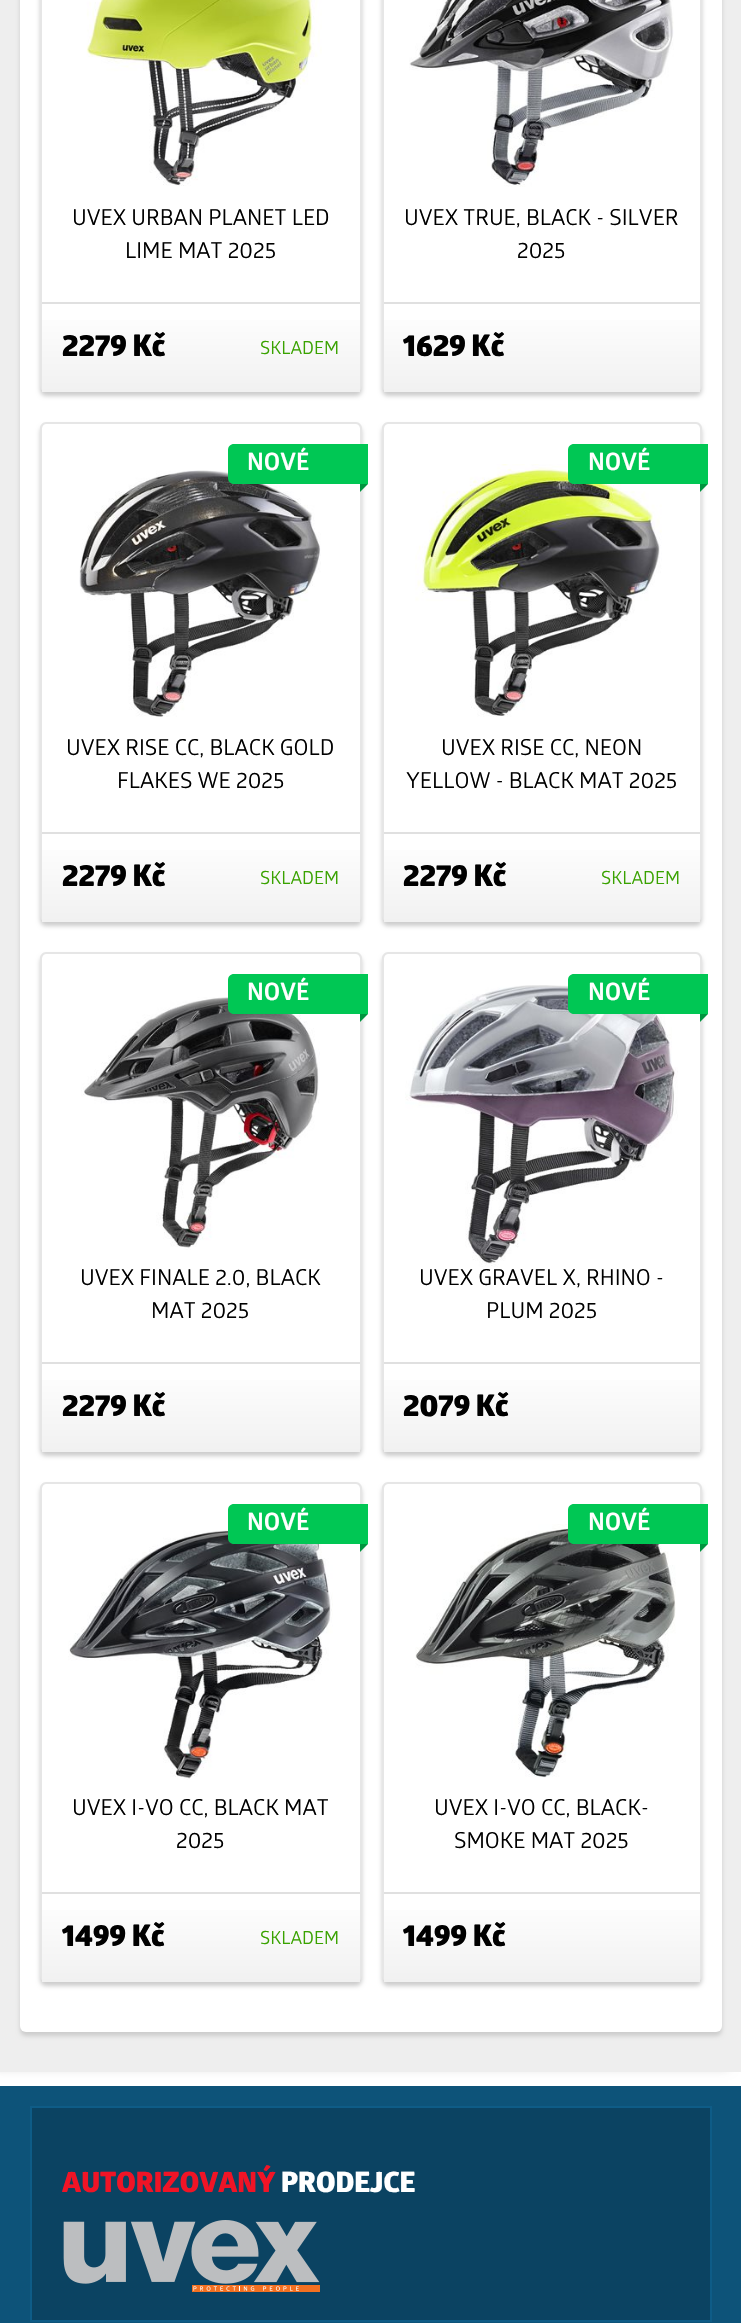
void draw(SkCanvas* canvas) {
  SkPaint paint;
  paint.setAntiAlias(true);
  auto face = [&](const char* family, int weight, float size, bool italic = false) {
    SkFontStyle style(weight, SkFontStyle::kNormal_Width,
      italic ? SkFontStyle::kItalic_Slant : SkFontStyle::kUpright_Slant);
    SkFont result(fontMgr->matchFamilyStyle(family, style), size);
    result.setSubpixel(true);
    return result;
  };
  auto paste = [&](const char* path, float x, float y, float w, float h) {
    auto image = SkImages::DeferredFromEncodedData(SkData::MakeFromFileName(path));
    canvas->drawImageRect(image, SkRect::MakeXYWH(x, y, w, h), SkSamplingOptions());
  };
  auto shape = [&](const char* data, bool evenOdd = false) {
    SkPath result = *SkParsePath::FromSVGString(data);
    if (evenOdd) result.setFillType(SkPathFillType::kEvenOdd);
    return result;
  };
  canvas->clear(0xff0d5379);
  paint.setColor(0xffffffff);
  canvas->drawRect(SkRect::MakeXYWH(0, 2072, 741, 14), paint);
  paint.setColor(0xffd1d1d1);
  paint.setMaskFilter(SkMaskFilter::MakeBlur(kNormal_SkBlurStyle, 5));
  canvas->drawRect(SkRect::MakeXYWH(-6, -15, 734, 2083), paint);
  paint.setMaskFilter(nullptr);
  paint.setColor(0xffeeeeee);
  canvas->drawRect(SkRect::MakeXYWH(0, 0, 741, 2072), paint);
  paint.setColor(0xffcdcdcd);
  paint.setMaskFilter(SkMaskFilter::MakeBlur(kNormal_SkBlurStyle, 2));
  canvas->drawRoundRect(SkRect::MakeXYWH(20, -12, 702, 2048), 6, 6, paint);
  paint.setMaskFilter(nullptr);
  paint.setColor(0xffffffff);
  canvas->drawRoundRect(SkRect::MakeXYWH(20, -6, 702, 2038), 6, 6, paint);
  paint.setColor(0xffcdcdcd);
  paint.setMaskFilter(SkMaskFilter::MakeBlur(kNormal_SkBlurStyle, 2));
  canvas->drawRoundRect(SkRect::MakeXYWH(40, -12, 322, 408), 6, 6, paint);
  paint.setMaskFilter(nullptr);
  paint.setColor(0xffffffff);
  canvas->drawPath(shape("M46-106H356C358-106 360-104 360-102V386C360 389 358 392 356 392H46C44 392 42 389 42 386V-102C42-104 44-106 46-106Z"), paint);
  paint.setColor(0xffe6e6e6);
  canvas->drawPath(shape("M46-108H356C359-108 362-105 362-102V386C362 389 359 392 356 392H46C43 392 40 389 40 386V-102C40-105 43-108 46-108ZM46-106H356C358-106 360-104 360-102V386C360 389 358 392 356 392H46C44 392 42 389 42 386V-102C42-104 44-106 46-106Z", true), paint);
  paste("img/1.png", 86, 0, 236, 186);
  {
    const SkColor colors[] = {0xffffffff, 0xfff1f1f1};
    const float stops[] = {0, 1};
    const SkPoint ends[] = {{201, 304}, {201, 392}};
    paint.setShader(SkGradientShader::MakeLinear(ends, colors, stops, 2, SkTileMode::kClamp));
    paint.setAlpha(255);
  }
  canvas->drawRect(SkRect::MakeXYWH(42, 320, 318, 72), paint);
  paint.setShader(nullptr);
  paint.setColor(0xffe0e0e0);
  canvas->drawRect(SkRect::MakeXYWH(42, 302, 318, 2), paint);
  paint.setColor(0xffcdcdcd);
  paint.setMaskFilter(SkMaskFilter::MakeBlur(kNormal_SkBlurStyle, 2));
  canvas->drawRoundRect(SkRect::MakeXYWH(382, -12, 320, 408), 6, 6, paint);
  paint.setMaskFilter(nullptr);
  paint.setColor(0xffffffff);
  canvas->drawPath(shape("M388-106H696C698-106 700-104 700-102V386C700 389 698 392 696 392H388C386 392 384 389 384 386V-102C384-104 386-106 388-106Z"), paint);
  paint.setColor(0xffe6e6e6);
  canvas->drawPath(shape("M388-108H696C699-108 702-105 702-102V386C702 389 699 392 696 392H388C385 392 382 389 382 386V-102C382-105 385-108 388-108ZM388-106H696C698-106 700-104 700-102V386C700 389 698 392 696 392H388C386 392 384 389 384 386V-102C384-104 386-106 388-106Z", true), paint);
  paste("img/2.png", 409, 0, 265, 187);
  {
    const SkColor colors[] = {0xffffffff, 0xfff1f1f1};
    const float stops[] = {0, 1};
    const SkPoint ends[] = {{542, 304}, {542, 392}};
    paint.setShader(SkGradientShader::MakeLinear(ends, colors, stops, 2, SkTileMode::kClamp));
    paint.setAlpha(255);
  }
  canvas->drawRect(SkRect::MakeXYWH(384, 320, 316, 72), paint);
  paint.setShader(nullptr);
  paint.setColor(0xffe0e0e0);
  canvas->drawRect(SkRect::MakeXYWH(384, 302, 316, 2), paint);
  paint.setColor(0xffcdcdcd);
  paint.setMaskFilter(SkMaskFilter::MakeBlur(kNormal_SkBlurStyle, 2));
  canvas->drawRoundRect(SkRect::MakeXYWH(40, 426, 322, 500), 6, 6, paint);
  paint.setMaskFilter(nullptr);
  paint.setColor(0xffffffff);
  canvas->drawPath(shape("M46 424H356C358 424 360 426 360 428V916C360 919 358 922 356 922H46C44 922 42 919 42 916V428C42 426 44 424 46 424Z"), paint);
  paint.setColor(0xffe6e6e6);
  canvas->drawPath(shape("M46 422H356C359 422 362 425 362 428V916C362 919 359 922 356 922H46C43 922 40 919 40 916V428C40 425 43 422 46 422ZM46 424H356C358 424 360 426 360 428V916C360 919 358 922 356 922H46C44 922 42 919 42 916V428C42 426 44 424 46 424Z", true), paint);
  paste("img/3.png", 79, 470, 242, 247);
  paint.setColor(0xff00c754);
  canvas->drawPath(shape("M234 444H368V484H234C230.5 484 228 481.5 228 478V450C228 446.5 230.5 444 234 444Z"), paint);
  paint.setColor(0xff00943e);
  canvas->drawPath(shape("M360 492V484H368Z"), paint);
  {
    const SkColor colors[] = {0xffffffff, 0xfff1f1f1};
    const float stops[] = {0, 1};
    const SkPoint ends[] = {{201, 834}, {201, 922}};
    paint.setShader(SkGradientShader::MakeLinear(ends, colors, stops, 2, SkTileMode::kClamp));
    paint.setAlpha(255);
  }
  canvas->drawRect(SkRect::MakeXYWH(42, 850, 318, 72), paint);
  paint.setShader(nullptr);
  paint.setColor(0xffe0e0e0);
  canvas->drawRect(SkRect::MakeXYWH(42, 832, 318, 2), paint);
  paint.setColor(0xffcdcdcd);
  paint.setMaskFilter(SkMaskFilter::MakeBlur(kNormal_SkBlurStyle, 2));
  canvas->drawRoundRect(SkRect::MakeXYWH(382, 426, 320, 500), 6, 6, paint);
  paint.setMaskFilter(nullptr);
  paint.setColor(0xffffffff);
  canvas->drawPath(shape("M388 424H696C698 424 700 426 700 428V916C700 919 698 922 696 922H388C386 922 384 919 384 916V428C384 426 386 424 388 424Z"), paint);
  paint.setColor(0xffe6e6e6);
  canvas->drawPath(shape("M388 422H696C699 422 702 425 702 428V916C702 919 699 922 696 922H388C385 922 382 919 382 916V428C382 425 385 422 388 422ZM388 424H696C698 424 700 426 700 428V916C700 919 698 922 696 922H388C386 922 384 919 384 916V428C384 426 386 424 388 424Z", true), paint);
  paste("img/4.png", 415, 464, 247, 253);
  paint.setColor(0xff00c754);
  canvas->drawPath(shape("M574 444H708V484H574C570.5 484 568 481.5 568 478V450C568 446.5 570.5 444 574 444Z"), paint);
  paint.setColor(0xff00943e);
  canvas->drawPath(shape("M700 492V484H708Z"), paint);
  {
    const SkColor colors[] = {0xffffffff, 0xfff1f1f1};
    const float stops[] = {0, 1};
    const SkPoint ends[] = {{542, 834}, {542, 922}};
    paint.setShader(SkGradientShader::MakeLinear(ends, colors, stops, 2, SkTileMode::kClamp));
    paint.setAlpha(255);
  }
  canvas->drawRect(SkRect::MakeXYWH(384, 850, 316, 72), paint);
  paint.setShader(nullptr);
  paint.setColor(0xffe0e0e0);
  canvas->drawRect(SkRect::MakeXYWH(384, 832, 316, 2), paint);
  paint.setColor(0xffcdcdcd);
  paint.setMaskFilter(SkMaskFilter::MakeBlur(kNormal_SkBlurStyle, 2));
  canvas->drawRoundRect(SkRect::MakeXYWH(40, 956, 322, 500), 6, 6, paint);
  paint.setMaskFilter(nullptr);
  paint.setColor(0xffffffff);
  canvas->drawPath(shape("M46 954H356C358 954 360 956 360 958V1446C360 1449 358 1452 356 1452H46C44 1452 42 1449 42 1446V958C42 956 44 954 46 954Z"), paint);
  paint.setColor(0xffe6e6e6);
  canvas->drawPath(shape("M46 952H356C359 952 362 955 362 958V1446C362 1449 359 1452 356 1452H46C43 1452 40 1449 40 1446V958C40 955 43 952 46 952ZM46 954H356C358 954 360 956 360 958V1446C360 1449 358 1452 356 1452H46C44 1452 42 1449 42 1446V958C42 956 44 954 46 954Z", true), paint);
  paste("img/5.png", 81, 997, 239, 253);
  paint.setColor(0xff00c754);
  canvas->drawPath(shape("M234 974H368V1014H234C230.5 1014 228 1011.5 228 1008V980C228 976.5 230.5 974 234 974Z"), paint);
  paint.setColor(0xff00943e);
  canvas->drawPath(shape("M360 1022V1014H368Z"), paint);
  {
    const SkColor colors[] = {0xffffffff, 0xfff1f1f1};
    const float stops[] = {0, 1};
    const SkPoint ends[] = {{201, 1364}, {201, 1452}};
    paint.setShader(SkGradientShader::MakeLinear(ends, colors, stops, 2, SkTileMode::kClamp));
    paint.setAlpha(255);
  }
  canvas->drawRect(SkRect::MakeXYWH(42, 1380, 318, 72), paint);
  paint.setShader(nullptr);
  paint.setColor(0xffe0e0e0);
  canvas->drawRect(SkRect::MakeXYWH(42, 1362, 318, 2), paint);
  paint.setColor(0xffcdcdcd);
  paint.setMaskFilter(SkMaskFilter::MakeBlur(kNormal_SkBlurStyle, 2));
  canvas->drawRoundRect(SkRect::MakeXYWH(382, 956, 320, 500), 6, 6, paint);
  paint.setMaskFilter(nullptr);
  paint.setColor(0xffffffff);
  canvas->drawPath(shape("M388 954H696C698 954 700 956 700 958V1446C700 1449 698 1452 696 1452H388C386 1452 384 1449 384 1446V958C384 956 386 954 388 954Z"), paint);
  paint.setColor(0xffe6e6e6);
  canvas->drawPath(shape("M388 952H696C699 952 702 955 702 958V1446C702 1449 699 1452 696 1452H388C385 1452 382 1449 382 1446V958C382 955 385 952 388 952ZM388 954H696C698 954 700 956 700 958V1446C700 1449 698 1452 696 1452H388C386 1452 384 1449 384 1446V958C384 956 386 954 388 954Z", true), paint);
  paste("img/6.png", 405, 985, 273, 282);
  paint.setColor(0xff00c754);
  canvas->drawPath(shape("M574 974H708V1014H574C570.5 1014 568 1011.5 568 1008V980C568 976.5 570.5 974 574 974Z"), paint);
  paint.setColor(0xff00943e);
  canvas->drawPath(shape("M700 1022V1014H708Z"), paint);
  {
    const SkColor colors[] = {0xffffffff, 0xfff1f1f1};
    const float stops[] = {0, 1};
    const SkPoint ends[] = {{542, 1364}, {542, 1452}};
    paint.setShader(SkGradientShader::MakeLinear(ends, colors, stops, 2, SkTileMode::kClamp));
    paint.setAlpha(255);
  }
  canvas->drawRect(SkRect::MakeXYWH(384, 1380, 316, 72), paint);
  paint.setShader(nullptr);
  paint.setColor(0xffe0e0e0);
  canvas->drawRect(SkRect::MakeXYWH(384, 1362, 316, 2), paint);
  paint.setColor(0xffcdcdcd);
  paint.setMaskFilter(SkMaskFilter::MakeBlur(kNormal_SkBlurStyle, 2));
  canvas->drawRoundRect(SkRect::MakeXYWH(40, 1486, 322, 500), 6, 6, paint);
  paint.setMaskFilter(nullptr);
  paint.setColor(0xffffffff);
  canvas->drawPath(shape("M46 1484H356C358 1484 360 1486 360 1488V1976C360 1979 358 1982 356 1982H46C44 1982 42 1979 42 1976V1488C42 1486 44 1484 46 1484Z"), paint);
  paint.setColor(0xffe6e6e6);
  canvas->drawPath(shape("M46 1482H356C359 1482 362 1485 362 1488V1976C362 1979 359 1982 356 1982H46C43 1982 40 1979 40 1976V1488C40 1485 43 1482 46 1482ZM46 1484H356C358 1484 360 1486 360 1488V1976C360 1979 358 1982 356 1982H46C44 1982 42 1979 42 1976V1488C42 1486 44 1484 46 1484Z", true), paint);
  paste("img/7.png", 68, 1529, 265, 251);
  paint.setColor(0xff00c754);
  canvas->drawPath(shape("M234 1504H368V1544H234C230.5 1544 228 1541.5 228 1538V1510C228 1506.5 230.5 1504 234 1504Z"), paint);
  paint.setColor(0xff00943e);
  canvas->drawPath(shape("M360 1552V1544H368Z"), paint);
  {
    const SkColor colors[] = {0xffffffff, 0xfff1f1f1};
    const float stops[] = {0, 1};
    const SkPoint ends[] = {{201, 1894}, {201, 1982}};
    paint.setShader(SkGradientShader::MakeLinear(ends, colors, stops, 2, SkTileMode::kClamp));
    paint.setAlpha(255);
  }
  canvas->drawRect(SkRect::MakeXYWH(42, 1910, 318, 72), paint);
  paint.setShader(nullptr);
  paint.setColor(0xffe0e0e0);
  canvas->drawRect(SkRect::MakeXYWH(42, 1892, 318, 2), paint);
  paint.setColor(0xffcdcdcd);
  paint.setMaskFilter(SkMaskFilter::MakeBlur(kNormal_SkBlurStyle, 2));
  canvas->drawRoundRect(SkRect::MakeXYWH(382, 1486, 320, 500), 6, 6, paint);
  paint.setMaskFilter(nullptr);
  paint.setColor(0xffffffff);
  canvas->drawPath(shape("M388 1484H696C698 1484 700 1486 700 1488V1976C700 1979 698 1982 696 1982H388C386 1982 384 1979 384 1976V1488C384 1486 386 1484 388 1484Z"), paint);
  paint.setColor(0xffe6e6e6);
  canvas->drawPath(shape("M388 1482H696C699 1482 702 1485 702 1488V1976C702 1979 699 1982 696 1982H388C385 1982 382 1979 382 1976V1488C382 1485 385 1482 388 1482ZM388 1484H696C698 1484 700 1486 700 1488V1976C700 1979 698 1982 696 1982H388C386 1982 384 1979 384 1976V1488C384 1486 386 1484 388 1484Z", true), paint);
  paste("img/8.png", 415, 1524, 261, 254);
  paint.setColor(0xff00c754);
  canvas->drawPath(shape("M574 1504H708V1544H574C570.5 1544 568 1541.5 568 1538V1510C568 1506.5 570.5 1504 574 1504Z"), paint);
  paint.setColor(0xff00943e);
  canvas->drawPath(shape("M700 1552V1544H708Z"), paint);
  {
    const SkColor colors[] = {0xffffffff, 0xfff1f1f1};
    const float stops[] = {0, 1};
    const SkPoint ends[] = {{542, 1894}, {542, 1982}};
    paint.setShader(SkGradientShader::MakeLinear(ends, colors, stops, 2, SkTileMode::kClamp));
    paint.setAlpha(255);
  }
  canvas->drawRect(SkRect::MakeXYWH(384, 1910, 316, 72), paint);
  paint.setShader(nullptr);
  paint.setColor(0xffe0e0e0);
  canvas->drawRect(SkRect::MakeXYWH(384, 1892, 316, 2), paint);
  paint.setColor(0xff0b4362);
  canvas->drawRect(SkRect::MakeXYWH(31, 2107, 680, 214), paint);
  paint.setStroke(true);
  paint.setStrokeWidth(2);
  paint.setColor(0xff0e5c87);
  canvas->drawRect(SkRect::MakeXYWH(31, 2107, 680, 214), paint);
  paste("img/9.png", 63, 2220, 257, 72);
  auto f0 = face("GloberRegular", 400, 22);
  paint.setStroke(false);
  paint.setColor(0xff000000);
  canvas->drawString("UVEX URBAN PLANET LED", 72, 225, f0, paint);
  canvas->drawString("LIME MAT 2025", 125, 258, f0, paint);
  auto f1 = face("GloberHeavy", 400, 30);
  canvas->drawString("2279 Kč", 62, 356, f1, paint);
  auto f2 = face("GloberRegular", 400, 18);
  paint.setColor(0xff39a200);
  canvas->drawString("SKLADEM", 260, 354, f2, paint);
  paint.setColor(0xff000000);
  canvas->drawString("UVEX TRUE, BLACK - SILVER", 404, 225, f0, paint);
  canvas->drawString("2025", 517, 258, f0, paint);
  canvas->drawString("1629 Kč", 403, 356, f1, paint);
  auto f3 = face("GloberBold", 400, 24);
  paint.setColor(0xffffffff);
  canvas->drawString("NOVÉ", 247, 470, f3, paint);
  paint.setColor(0xff000000);
  canvas->drawString("UVEX RISE CC, BLACK GOLD", 66, 755, f0, paint);
  canvas->drawString("FLAKES WE 2025", 117, 788, f0, paint);
  canvas->drawString("2279 Kč", 62, 886, f1, paint);
  paint.setColor(0xff39a200);
  canvas->drawString("SKLADEM", 260, 884, f2, paint);
  paint.setColor(0xffffffff);
  canvas->drawString("NOVÉ", 588, 470, f3, paint);
  paint.setColor(0xff000000);
  canvas->drawString("UVEX RISE CC, NEON", 441, 755, f0, paint);
  canvas->drawString("YELLOW - BLACK MAT 2025", 406, 788, f0, paint);
  canvas->drawString("2279 Kč", 403, 886, f1, paint);
  paint.setColor(0xff39a200);
  canvas->drawString("SKLADEM", 601, 884, f2, paint);
  paint.setColor(0xffffffff);
  canvas->drawString("NOVÉ", 247, 1000, f3, paint);
  paint.setColor(0xff000000);
  canvas->drawString("UVEX FINALE 2.0, BLACK", 80, 1285, f0, paint);
  canvas->drawString("MAT 2025", 151, 1318, f0, paint);
  canvas->drawString("2279 Kč", 62, 1416, f1, paint);
  paint.setColor(0xffffffff);
  canvas->drawString("NOVÉ", 588, 1000, f3, paint);
  paint.setColor(0xff000000);
  canvas->drawString("UVEX GRAVEL X, RHINO -", 419, 1285, f0, paint);
  canvas->drawString("PLUM 2025", 486, 1318, f0, paint);
  canvas->drawString("2079 Kč", 403, 1416, f1, paint);
  paint.setColor(0xffffffff);
  canvas->drawString("NOVÉ", 247, 1530, f3, paint);
  paint.setColor(0xff000000);
  canvas->drawString("UVEX I-VO CC, BLACK MAT", 72, 1815, f0, paint);
  canvas->drawString("2025", 176, 1848, f0, paint);
  canvas->drawString("1499 Kč", 62, 1946, f1, paint);
  paint.setColor(0xff39a200);
  canvas->drawString("SKLADEM", 260, 1944, f2, paint);
  paint.setColor(0xffffffff);
  canvas->drawString("NOVÉ", 588, 1530, f3, paint);
  paint.setColor(0xff000000);
  canvas->drawString("UVEX I-VO CC, BLACK-", 434, 1815, f0, paint);
  canvas->drawString("SMOKE MAT 2025", 454, 1848, f0, paint);
  canvas->drawString("1499 Kč", 403, 1946, f1, paint);
  auto f4 = face("GloberHeavy", 400, 28);
  paint.setColor(0xfff01426);
  canvas->drawString("AUTORIZOVANÝ", 62, 2192, f4, paint);
  paint.setColor(0xffffffff);
  canvas->drawString("PRODEJCE", 281, 2192, f4, paint);
}
